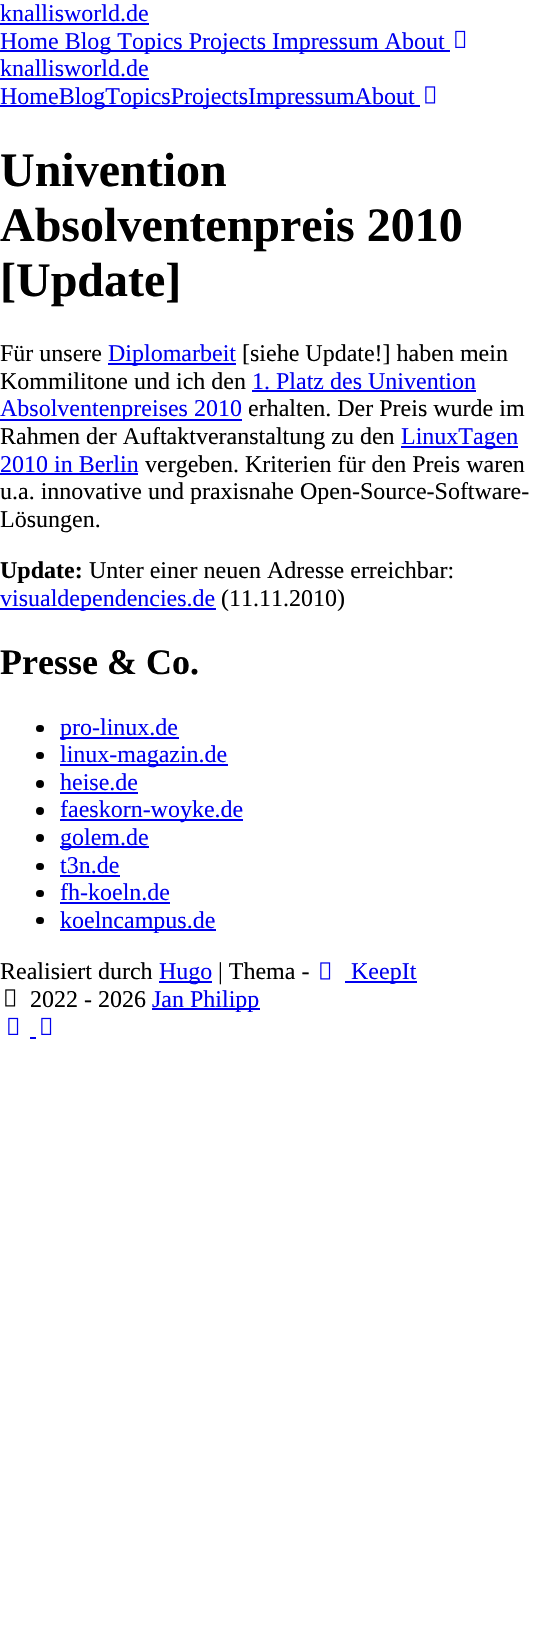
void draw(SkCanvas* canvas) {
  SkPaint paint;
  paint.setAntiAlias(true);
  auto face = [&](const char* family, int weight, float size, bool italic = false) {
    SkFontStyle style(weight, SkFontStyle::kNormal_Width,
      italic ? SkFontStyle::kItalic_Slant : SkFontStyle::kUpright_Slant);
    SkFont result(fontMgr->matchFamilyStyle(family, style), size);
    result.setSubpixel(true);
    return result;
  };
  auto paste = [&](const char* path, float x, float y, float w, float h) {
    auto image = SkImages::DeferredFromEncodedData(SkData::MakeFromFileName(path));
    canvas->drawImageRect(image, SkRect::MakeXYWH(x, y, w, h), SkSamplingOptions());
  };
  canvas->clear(0xffffffff);
  paint.setColor(0xff0000ee);
  canvas->drawRect(SkRect::MakeXYWH(0, 23, 149, 2), paint);
  canvas->drawRect(SkRect::MakeXYWH(0, 50, 450, 2), paint);
  paste("img/1.png", 455, 30, 11, 18);
  canvas->drawRect(SkRect::MakeXYWH(0, 78, 149, 2), paint);
  canvas->drawRect(SkRect::MakeXYWH(0, 105, 354, 2), paint);
  paste("img/2.png", 425, 86, 11, 18);
  {
    const struct { float x, y, w, h; SkColor color; } items[] = {
      {354, 105, 66, 2, 0xff0000ee},
      {108, 363, 128, 2, 0xff0000ee},
      {252, 390, 224, 2, 0xff0000ee},
      {0, 419, 242, 2, 0xff0000ee},
      {401, 446, 117, 2, 0xff0000ee},
      {0, 473, 138, 2, 0xff0000ee},
      {0, 608, 216, 2, 0xff0000ee},
    };
    for (auto [x, y, w, h, color] : items) {
      paint.setColor(color);
      canvas->drawRect(SkRect::MakeXYWH(x, y, w, h), paint);
    }
  }
  paint.setColor(0xff000000);
  canvas->drawRoundRect(SkRect::MakeXYWH(36, 725, 8, 7), 3.5f, 3.5f, paint);
  paint.setColor(0xff0000ee);
  canvas->drawRect(SkRect::MakeXYWH(60, 737, 119, 2), paint);
  paint.setColor(0xff000000);
  canvas->drawRoundRect(SkRect::MakeXYWH(36, 752, 8, 7), 3.5f, 3.5f, paint);
  paint.setColor(0xff0000ee);
  canvas->drawRect(SkRect::MakeXYWH(60, 764, 168, 2), paint);
  paint.setColor(0xff000000);
  canvas->drawCircle(40, 784, 4, paint);
  paint.setColor(0xff0000ee);
  canvas->drawRect(SkRect::MakeXYWH(60, 792, 78, 2), paint);
  paint.setColor(0xff000000);
  canvas->drawCircle(40, 811, 4, paint);
  paint.setColor(0xff0000ee);
  canvas->drawRect(SkRect::MakeXYWH(60, 819, 183, 2), paint);
  paint.setColor(0xff000000);
  canvas->drawCircle(40, 838, 4, paint);
  paint.setColor(0xff0000ee);
  canvas->drawRect(SkRect::MakeXYWH(60, 846, 89, 2), paint);
  paint.setColor(0xff000000);
  canvas->drawRoundRect(SkRect::MakeXYWH(36, 863, 8, 7), 3.5f, 3.5f, paint);
  paint.setColor(0xff0000ee);
  canvas->drawRect(SkRect::MakeXYWH(60, 875, 60, 2), paint);
  paint.setColor(0xff000000);
  canvas->drawRoundRect(SkRect::MakeXYWH(36, 890, 8, 7), 3.5f, 3.5f, paint);
  paint.setColor(0xff0000ee);
  canvas->drawRect(SkRect::MakeXYWH(60, 902, 110, 2), paint);
  paint.setColor(0xff000000);
  canvas->drawRoundRect(SkRect::MakeXYWH(36, 917, 8, 7), 3.5f, 3.5f, paint);
  paint.setColor(0xff0000ee);
  canvas->drawRect(SkRect::MakeXYWH(60, 929, 156, 2), paint);
  canvas->drawRect(SkRect::MakeXYWH(159, 981, 53, 2), paint);
  paste("img/2.png", 320, 962, 11, 18);
  canvas->drawRect(SkRect::MakeXYWH(345, 981, 72, 2), paint);
  paste("img/3.png", 5, 989, 11, 18);
  canvas->drawRect(SkRect::MakeXYWH(152, 1008, 108, 2), paint);
  paste("img/1.png", 8, 1017, 11, 18);
  canvas->drawRect(SkRect::MakeXYWH(30, 1037, 6, 2), paint);
  paste("img/1.png", 41, 1017, 11, 18);
  auto f0 = face("Liberation Serif", 400, 24);
  {
    const struct { const char* s; float x, y; } items[] = {
      {"knallisworld.de", 0, 21},
      {"Home Blog Topics Projects Impressum About", 0, 49},
      {"knallisworld.de", 0, 76},
      {"HomeBlogTopicsProjectsImpressumAbout", 0, 104},
    };
    for (auto [s, x, y] : items) {
      canvas->drawString(s, x, y, f0, paint);
    }
  }
  auto f1 = face("Liberation Serif", 700, 48);
  paint.setColor(0xff000000);
  {
    const struct { const char* s; float x, y; } items[] = {
      {"Univention", 0, 186},
      {"Absolventenpreis 2010", 0, 241},
      {"[Update]", 0, 296},
    };
    for (auto [s, x, y] : items) {
      canvas->drawString(s, x, y, f1, paint);
    }
  }
  canvas->drawString("Für unsere", 0, 361, f0, paint);
  paint.setColor(0xff0000ee);
  canvas->drawString("Diplomarbeit", 108, 361, f0, paint);
  paint.setColor(0xff000000);
  canvas->drawString("[siehe Update!] haben mein", 242, 361, f0, paint);
  canvas->drawString("Kommilitone und ich den", 0, 389, f0, paint);
  paint.setColor(0xff0000ee);
  canvas->drawString("1. Platz des Univention", 252, 389, f0, paint);
  canvas->drawString("Absolventenpreises 2010", 0, 416, f0, paint);
  paint.setColor(0xff000000);
  canvas->drawString("erhalten. Der Preis wurde im", 248, 416, f0, paint);
  canvas->drawString("Rahmen der Auftaktveranstaltung zu den", 0, 444, f0, paint);
  paint.setColor(0xff0000ee);
  canvas->drawString("LinuxTagen", 401, 444, f0, paint);
  canvas->drawString("2010 in Berlin", 0, 472, f0, paint);
  paint.setColor(0xff000000);
  {
    const struct { const char* s; float x, y; } items[] = {
      {"vergeben. Kriterien für den Preis waren", 145, 472},
      {"u.a. innovative und praxisnahe Open-Source-Software-", 0, 499},
      {"Lösungen.", 0, 527},
    };
    for (auto [s, x, y] : items) {
      canvas->drawString(s, x, y, f0, paint);
    }
  }
  auto f2 = face("Liberation Serif", 700, 24);
  canvas->drawString("Update:", 0, 578, f2, paint);
  canvas->drawString("Unter einer neuen Adresse erreichbar:", 89, 578, f0, paint);
  paint.setColor(0xff0000ee);
  canvas->drawString("visualdependencies.de", 0, 606, f0, paint);
  paint.setColor(0xff000000);
  canvas->drawString("(11.11.2010)", 221, 606, f0, paint);
  auto f3 = face("Liberation Serif", 700, 36);
  canvas->drawString("Presse & Co.", 0, 674, f3, paint);
  paint.setColor(0xff0000ee);
  {
    const struct { const char* s; float x, y; } items[] = {
      {"pro-linux.de", 60, 735},
      {"linux-magazin.de", 60, 762},
      {"heise.de", 60, 790},
      {"faeskorn-woyke.de", 60, 817},
      {"golem.de", 60, 845},
      {"t3n.de", 60, 873},
      {"fh-koeln.de", 60, 900},
      {"koelncampus.de", 60, 928},
    };
    for (auto [s, x, y] : items) {
      canvas->drawString(s, x, y, f0, paint);
    }
  }
  paint.setColor(0xff000000);
  canvas->drawString("Realisiert durch", 0, 979, f0, paint);
  paint.setColor(0xff0000ee);
  canvas->drawString("Hugo", 159, 979, f0, paint);
  paint.setColor(0xff000000);
  canvas->drawString("| Thema -", 218, 979, f0, paint);
  paint.setColor(0xff0000ee);
  canvas->drawString("KeepIt", 351, 979, f0, paint);
  paint.setColor(0xff000000);
  canvas->drawString("2022 - 2026", 30, 1007, f0, paint);
  paint.setColor(0xff0000ee);
  canvas->drawString("Jan Philipp", 152, 1007, f0, paint);
}
